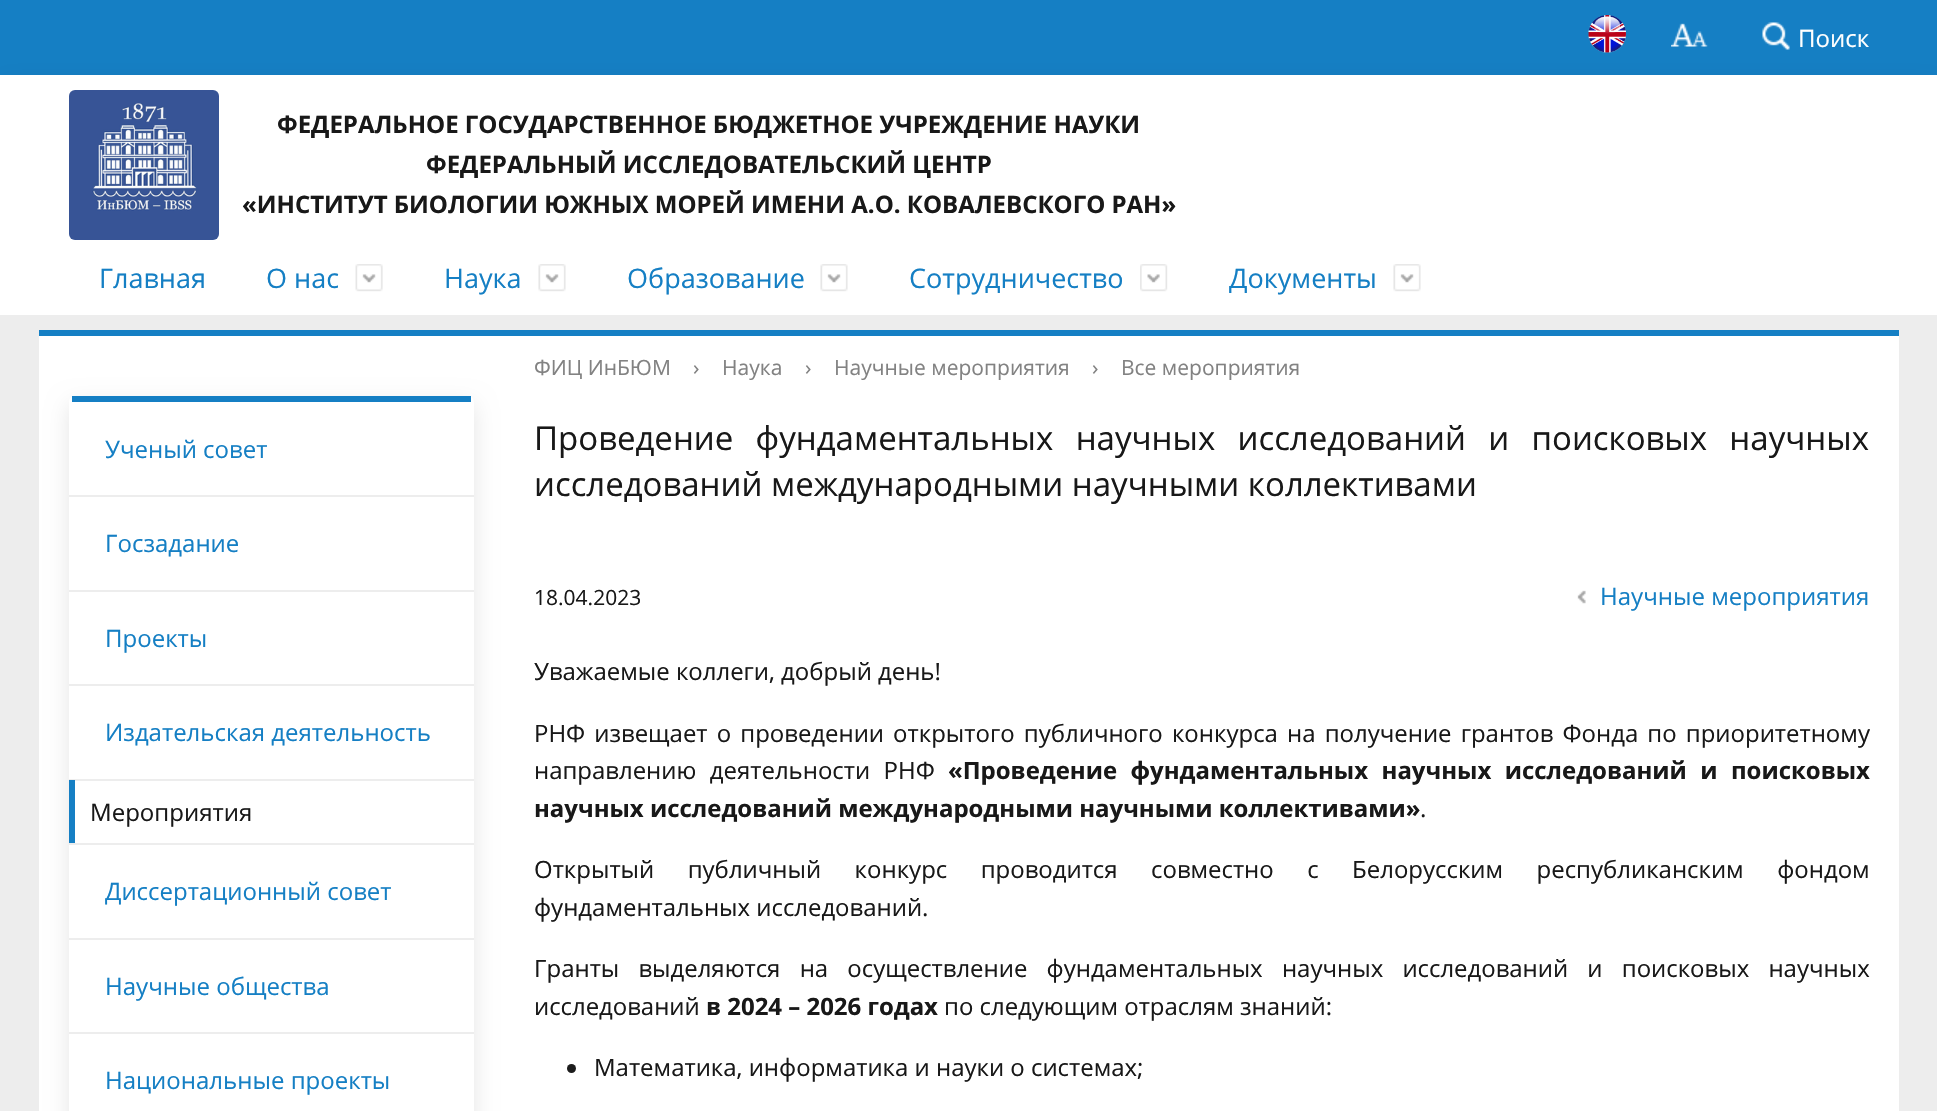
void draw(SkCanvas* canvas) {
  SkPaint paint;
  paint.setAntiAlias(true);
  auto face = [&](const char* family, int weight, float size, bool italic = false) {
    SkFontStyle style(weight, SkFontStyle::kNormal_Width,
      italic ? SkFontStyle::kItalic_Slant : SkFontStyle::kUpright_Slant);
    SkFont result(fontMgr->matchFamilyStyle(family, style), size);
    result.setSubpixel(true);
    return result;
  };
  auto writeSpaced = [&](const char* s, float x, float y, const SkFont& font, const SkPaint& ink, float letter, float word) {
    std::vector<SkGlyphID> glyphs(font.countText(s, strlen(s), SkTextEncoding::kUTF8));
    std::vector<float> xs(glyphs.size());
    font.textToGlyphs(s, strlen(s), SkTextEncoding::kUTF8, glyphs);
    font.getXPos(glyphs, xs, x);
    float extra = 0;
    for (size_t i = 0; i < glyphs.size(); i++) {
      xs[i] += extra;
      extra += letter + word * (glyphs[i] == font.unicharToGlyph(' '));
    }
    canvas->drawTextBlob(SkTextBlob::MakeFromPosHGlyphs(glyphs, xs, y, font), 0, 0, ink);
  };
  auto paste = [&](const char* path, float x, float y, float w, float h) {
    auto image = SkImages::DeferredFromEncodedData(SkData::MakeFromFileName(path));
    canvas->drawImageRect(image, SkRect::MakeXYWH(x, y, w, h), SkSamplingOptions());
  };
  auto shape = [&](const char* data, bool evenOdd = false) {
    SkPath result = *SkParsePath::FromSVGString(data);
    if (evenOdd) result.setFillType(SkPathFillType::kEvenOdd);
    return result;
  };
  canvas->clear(0xffededed);
  paint.setColor(0xff157fc4);
  canvas->drawRect(SkRect::MakeXYWH(0, 0, 1937, 75), paint);
  paint.setColor(0x1a000000);
  paint.setMaskFilter(SkMaskFilter::MakeBlur(kNormal_SkBlurStyle, 11));
  canvas->drawRect(SkRect::MakeXYWH(0, 83, 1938, 165), paint);
  paint.setMaskFilter(nullptr);
  paste("img/1.png", 1588, 15, 38, 38);
  paste("img/2.png", 1671, 23, 37, 24);
  paste("img/3.png", 1762, 22, 28, 28);
  paint.setColor(0xffffffff);
  canvas->drawRect(SkRect::MakeXYWH(0, 75, 1937, 240), paint);
  paste("img/4.png", 69, 90, 150, 150);
  paste("img/5.png", 355, 264, 28, 28);
  paste("img/6.png", 538, 264, 28, 28);
  paste("img/6.png", 820, 264, 28, 28);
  paste("img/7.png", 1140, 264, 28, 28);
  paste("img/6.png", 1393, 264, 28, 28);
  canvas->drawRect(SkRect::MakeXYWH(39, 336, 1860, 775), paint);
  paint.setColor(0xff157fc4);
  canvas->drawRect(SkRect::MakeXYWH(39, 330, 1860, 6), paint);
  canvas->save();
  canvas->clipPath(shape("M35 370H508V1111H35ZM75 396H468C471.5 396 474 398.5 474 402V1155C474 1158.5 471.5 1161 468 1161H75C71.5 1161 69 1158.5 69 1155V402C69 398.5 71.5 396 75 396Z", true), true);
  paint.setColor(0x1a000000);
  paint.setMaskFilter(SkMaskFilter::MakeBlur(kNormal_SkBlurStyle, 11));
  canvas->drawRoundRect(SkRect::MakeXYWH(69, 404, 405, 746), 6, 6, paint);
  paint.setMaskFilter(nullptr);
  canvas->restore();
  {
    const struct { float x, y, w, h; SkColor color; } items[] = {
      {72, 396, 399, 6, 0xff157fc4},
      {69, 495, 405, 2, 0xffededed},
      {69, 590, 405, 2, 0xffededed},
      {69, 684, 405, 2, 0xffededed},
      {69, 779, 405, 2, 0xffededed},
      {69, 843, 405, 2, 0xffededed},
      {69, 780, 6, 63, 0xff157fc4},
      {69, 938, 405, 2, 0xffededed},
      {69, 1032, 405, 2, 0xffededed},
    };
    for (auto [x, y, w, h, color] : items) {
      paint.setColor(color);
      canvas->drawRect(SkRect::MakeXYWH(x, y, w, h), paint);
    }
  }
  paste("img/8.png", 1577, 590, 9, 14);
  paint.setColor(0xff1c1c1c);
  canvas->drawCircle(571.5f, 1068.5f, 4.5f, paint);
  auto f0 = face("Open Sans", 400, 24);
  paint.setColor(0xffffffff);
  canvas->drawString("Поиск", 1798, 47, f0, paint);
  auto f1 = face("Open Sans", 700, 24);
  paint.setColor(0xff181818);
  {
    const struct { const char* s; float x, y; } items[] = {
      {"ФЕДЕРАЛЬНОЕ ГОСУДАРСТВЕННОЕ БЮДЖЕТНОЕ УЧРЕЖДЕНИЕ НАУКИ", 277, 133},
      {"ФЕДЕРАЛЬНЫЙ ИССЛЕДОВАТЕЛЬСКИЙ ЦЕНТР", 426, 173},
      {"«ИНСТИТУТ БИОЛОГИИ ЮЖНЫХ МОРЕЙ ИМЕНИ А.О. КОВАЛЕВСКОГО РАН»", 242, 213},
    };
    for (auto [s, x, y] : items) {
      canvas->drawString(s, x, y, f1, paint);
    }
  }
  auto f2 = face("Open Sans", 400, 27);
  paint.setColor(0xff157fc4);
  {
    const struct { const char* s; float x, y; } items[] = {
      {"Главная", 99, 288},
      {"О нас", 266, 288},
      {"Наука", 444, 288},
      {"Образование", 627, 288},
      {"Сотрудничество", 909, 288},
      {"Документы", 1229, 288},
    };
    for (auto [s, x, y] : items) {
      canvas->drawString(s, x, y, f2, paint);
    }
  }
  {
    const struct { const char* s; float x, y; } items[] = {
      {"Ученый совет", 105, 458},
      {"Госзадание", 105, 552},
      {"Проекты", 105, 647},
      {"Издательская деятельность", 105, 741},
    };
    for (auto [s, x, y] : items) {
      canvas->drawString(s, x, y, f0, paint);
    }
  }
  paint.setColor(0xff181818);
  canvas->drawString("Мероприятия", 90, 821, f0, paint);
  paint.setColor(0xff157fc4);
  {
    const struct { const char* s; float x, y; } items[] = {
      {"Диссертационный совет", 105, 900},
      {"Научные общества", 105, 995},
      {"Национальные проекты", 105, 1089},
    };
    for (auto [s, x, y] : items) {
      canvas->drawString(s, x, y, f0, paint);
    }
  }
  auto f3 = face("Open Sans", 400, 21);
  paint.setColor(0xff828282);
  {
    const struct { const char* s; float x, y; } items[] = {
      {"ФИЦ ИнБЮМ", 534, 375},
      {"›", 693, 375},
      {"Наука", 722, 375},
      {"›", 805, 375},
      {"Научные мероприятия", 834, 375},
      {"›", 1092, 375},
      {"Все мероприятия", 1121, 375},
    };
    for (auto [s, x, y] : items) {
      canvas->drawString(s, x, y, f3, paint);
    }
  }
  auto f4 = face("Open Sans", 400, 33);
  paint.setColor(0xff181818);
  writeSpaced("Проведение фундаментальных научных исследований и поисковых научных", 534, 450, f4, paint, 0, 13.75f);
  canvas->drawString("исследований международными научными коллективами", 534, 496, f4, paint);
  canvas->drawString("18.04.2023", 534, 605, f3, paint);
  paint.setColor(0xff157fc4);
  canvas->drawString("Научные мероприятия", 1600, 605, f0, paint);
  auto f5 = face("Open Sans", 400, 23.95f);
  paint.setColor(0xff181818);
  canvas->drawString("Уважаемые коллеги, добрый день!", 534, 680, f5, paint);
  writeSpaced("РНФ извещает о проведении открытого публичного конкурса на получение грантов Фонда по приоритетному", 534, 742, f5, paint, 0, 2.9f);
  writeSpaced("направлению деятельности РНФ", 534, 779, f5, paint, 0, 7.25f);
  auto f6 = face("Open Sans", 700, 23.95f);
  writeSpaced("«Проведение фундаментальных научных исследований и поисковых", 948, 779, f6, paint, 0, 7.25f);
  canvas->drawString("научных исследований международными научными коллективами»", 534, 817, f6, paint);
  canvas->drawString(".", 1420, 817, f5, paint);
  writeSpaced("Открытый публичный конкурс проводится совместно с Белорусским республиканским фондом", 534, 878, f5, paint, 0, 27.25f);
  canvas->drawString("фундаментальных исследований.", 534, 916, f5, paint);
  writeSpaced("Гранты выделяются на осуществление фундаментальных научных исследований и поисковых научных", 534, 977, f5, paint, 0, 13);
  canvas->drawString("исследований", 534, 1015, f5, paint);
  canvas->drawString("в 2024 – 2026 годах", 706, 1015, f6, paint);
  canvas->drawString("по следующим отраслям знаний:", 944, 1015, f5, paint);
  canvas->drawString("Математика, информатика и науки о системах;", 594, 1076, f5, paint);
}
